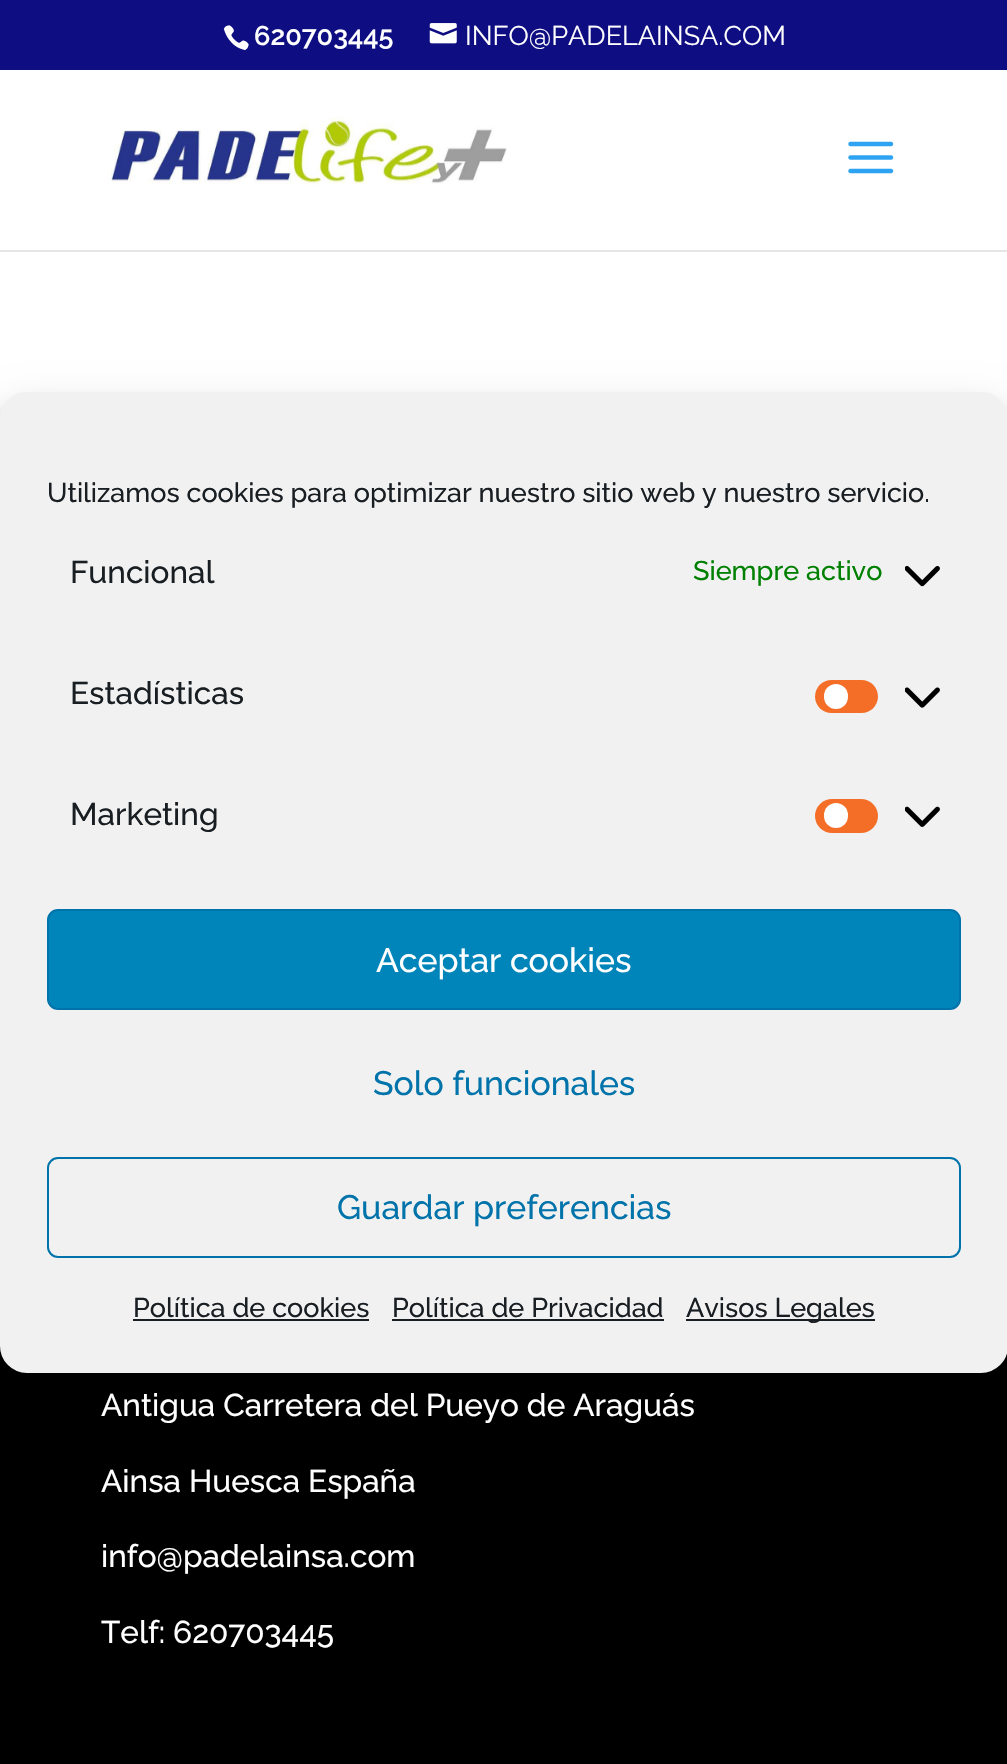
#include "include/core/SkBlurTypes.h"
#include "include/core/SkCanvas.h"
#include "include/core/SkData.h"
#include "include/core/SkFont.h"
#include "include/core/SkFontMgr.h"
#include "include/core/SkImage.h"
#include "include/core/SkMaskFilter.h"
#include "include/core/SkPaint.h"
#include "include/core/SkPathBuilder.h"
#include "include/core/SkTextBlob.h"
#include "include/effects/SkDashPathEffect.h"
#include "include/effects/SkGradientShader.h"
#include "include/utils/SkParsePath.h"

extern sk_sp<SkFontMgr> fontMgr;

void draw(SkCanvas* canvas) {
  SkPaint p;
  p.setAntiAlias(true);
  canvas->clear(SK_ColorWHITE);
  p.setColor(SkColorSetRGB(14, 14, 130));
  canvas->drawRect(SkRect::MakeLTRB(0, 0, 1007, 70), p);
  canvas->drawImageRect(SkImages::DeferredFromEncodedData(SkData::MakeFromFileName("images/1.png")), SkRect::MakeLTRB(223, 25, 249, 51), SkSamplingOptions());
  canvas->drawImageRect(SkImages::DeferredFromEncodedData(SkData::MakeFromFileName("images/2.png")), SkRect::MakeLTRB(429, 23, 457, 44), SkSamplingOptions());
  p.setColor(SkColorSetRGB(230, 230, 230));
  canvas->drawRect(SkRect::MakeLTRB(0, 250, 1007, 252), p);
  canvas->drawImageRect(SkImages::DeferredFromEncodedData(SkData::MakeFromFileName("images/3.png")), SkRect::MakeLTRB(108, 117, 507, 185), SkSamplingOptions());
  canvas->drawImageRect(SkImages::DeferredFromEncodedData(SkData::MakeFromFileName("images/4.png")), SkRect::MakeLTRB(848, 141, 894, 174), SkSamplingOptions());
  p.setColor(SK_ColorBLACK);
  canvas->drawRect(SkRect::MakeLTRB(0, 1346, 1007, 1764), p);
  p.setColor(SkColorSetARGB(59, 0, 0, 0));
  p.setMaskFilter(SkMaskFilter::MakeBlur(kNormal_SkBlurStyle, 7));
  canvas->drawRoundRect(SkRect::MakeLTRB(0, 405, 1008, 1386), 27, 27, p);
  p.setMaskFilter(nullptr);
  p.setColor(SkColorSetARGB(48, 0, 0, 0));
  p.setMaskFilter(SkMaskFilter::MakeBlur(kNormal_SkBlurStyle, 22.5f));
  canvas->drawRoundRect(SkRect::MakeLTRB(0, 414, 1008, 1395), 27, 27, p);
  p.setMaskFilter(nullptr);
  p.setColor(SkColorSetRGB(241, 241, 241));
  canvas->drawRoundRect(SkRect::MakeLTRB(1, 393, 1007, 1372), 26, 26, p);
  p.setStyle(SkPaint::kStroke_Style);
  p.setStrokeWidth(2);
  canvas->drawRoundRect(SkRect::MakeLTRB(1, 393, 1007, 1372), 26, 26, p);
  canvas->drawImageRect(SkImages::DeferredFromEncodedData(SkData::MakeFromFileName("images/5.png")), SkRect::MakeLTRB(905, 566, 940, 587), SkSamplingOptions());
  p.setStyle(SkPaint::kFill_Style);
  p.setColor(SkColorSetRGB(245, 110, 40));
  canvas->drawRoundRect(SkRect::MakeLTRB(815, 680, 878, 713), 16.5f, 16.5f, p);
  p.setColor(SK_ColorWHITE);
  canvas->drawRoundRect(SkRect::MakeLTRB(824, 684, 848, 709), 12, 12, p);
  canvas->drawImageRect(SkImages::DeferredFromEncodedData(SkData::MakeFromFileName("images/6.png")), SkRect::MakeLTRB(905, 687, 940, 708), SkSamplingOptions());
  p.setColor(SkColorSetRGB(245, 110, 40));
  canvas->drawRoundRect(SkRect::MakeLTRB(815, 799, 878, 833), 17, 17, p);
  p.setColor(SK_ColorWHITE);
  canvas->drawRoundRect(SkRect::MakeLTRB(824, 803, 848, 828), 12, 12, p);
  canvas->drawImageRect(SkImages::DeferredFromEncodedData(SkData::MakeFromFileName("images/7.png")), SkRect::MakeLTRB(905, 806, 940, 827), SkSamplingOptions());
  p.setColor(SkColorSetRGB(0, 133, 186));
  canvas->drawRoundRect(SkRect::MakeLTRB(48, 910, 960, 1009), 10, 10, p);
  p.setStyle(SkPaint::kStroke_Style);
  p.setColor(SkColorSetRGB(0, 115, 170));
  canvas->drawRoundRect(SkRect::MakeLTRB(48, 910, 960, 1009), 10, 10, p);
  canvas->drawRoundRect(SkRect::MakeLTRB(48, 1158, 960, 1257), 10, 10, p);
  p.setStyle(SkPaint::kFill_Style);
  p.setColor(SkColorSetRGB(25, 30, 35));
  canvas->drawRect(SkRect::MakeLTRB(133, 1319, 369, 1321), p);
  canvas->drawRect(SkRect::MakeLTRB(392, 1319, 664, 1321), p);
  canvas->drawRect(SkRect::MakeLTRB(686, 1319, 875, 1321), p);
  SkFont font1(fontMgr->matchFamilyStyle("Raleway", SkFontStyle(600, SkFontStyle::kNormal_Width, SkFontStyle::kUpright_Slant)), 27);
  font1.setSubpixel(true);
  p.setColor(SK_ColorWHITE);
  canvas->drawString("620703445", 254, 45, font1, p);
  SkFont font2(fontMgr->matchFamilyStyle("Raleway", SkFontStyle::Normal()), 27);
  font2.setSubpixel(true);
  canvas->drawString("INFO@PADELAINSA.COM", 465, 45, font2, p);
  SkFont font3(fontMgr->matchFamilyStyle("Raleway", SkFontStyle(500, SkFontStyle::kNormal_Width, SkFontStyle::kUpright_Slant)), 31.5f);
  font3.setSubpixel(true);
  canvas->drawString("Antigua Carretera del Pueyo de Araguás", 101, 1416, font3, p);
  canvas->drawString("Ainsa Huesca España", 101, 1492, font3, p);
  canvas->drawString("info@padelainsa.com", 101, 1567, font3, p);
  canvas->drawString("Telf: 620703445", 101, 1643, font3, p);
  SkFont font4(fontMgr->matchFamilyStyle("Raleway", SkFontStyle(500, SkFontStyle::kNormal_Width, SkFontStyle::kUpright_Slant)), 27);
  font4.setSubpixel(true);
  p.setColor(SkColorSetRGB(25, 30, 35));
  canvas->drawString("Utilizamos cookies para optimizar nuestro sitio web y nuestro servicio.", 47, 502, font4, p);
  canvas->drawString("Funcional", 70, 583, font3, p);
  p.setColor(SkColorSetRGB(0, 128, 0));
  canvas->drawString("Siempre activo", 693, 580, font4, p);
  p.setColor(SkColorSetRGB(25, 30, 35));
  canvas->drawString("Estadísticas", 70, 704, font3, p);
  canvas->drawString("Marketing", 70, 825, font3, p);
  SkFont font5(fontMgr->matchFamilyStyle("Raleway", SkFontStyle(500, SkFontStyle::kNormal_Width, SkFontStyle::kUpright_Slant)), 33.75f);
  font5.setSubpixel(true);
  p.setColor(SK_ColorWHITE);
  canvas->drawString("Aceptar cookies", 376, 972, font5, p);
  p.setColor(SkColorSetRGB(0, 115, 170));
  canvas->drawString("Solo funcionales", 373, 1095, font5, p);
  canvas->drawString("Guardar preferencias", 337, 1219, font5, p);
  p.setColor(SkColorSetRGB(25, 30, 35));
  canvas->drawString("Política de cookies", 133, 1317, font4, p);
  canvas->drawString("Política de Privacidad", 392, 1317, font4, p);
  canvas->drawString("Avisos Legales", 686, 1317, font4, p);
}
